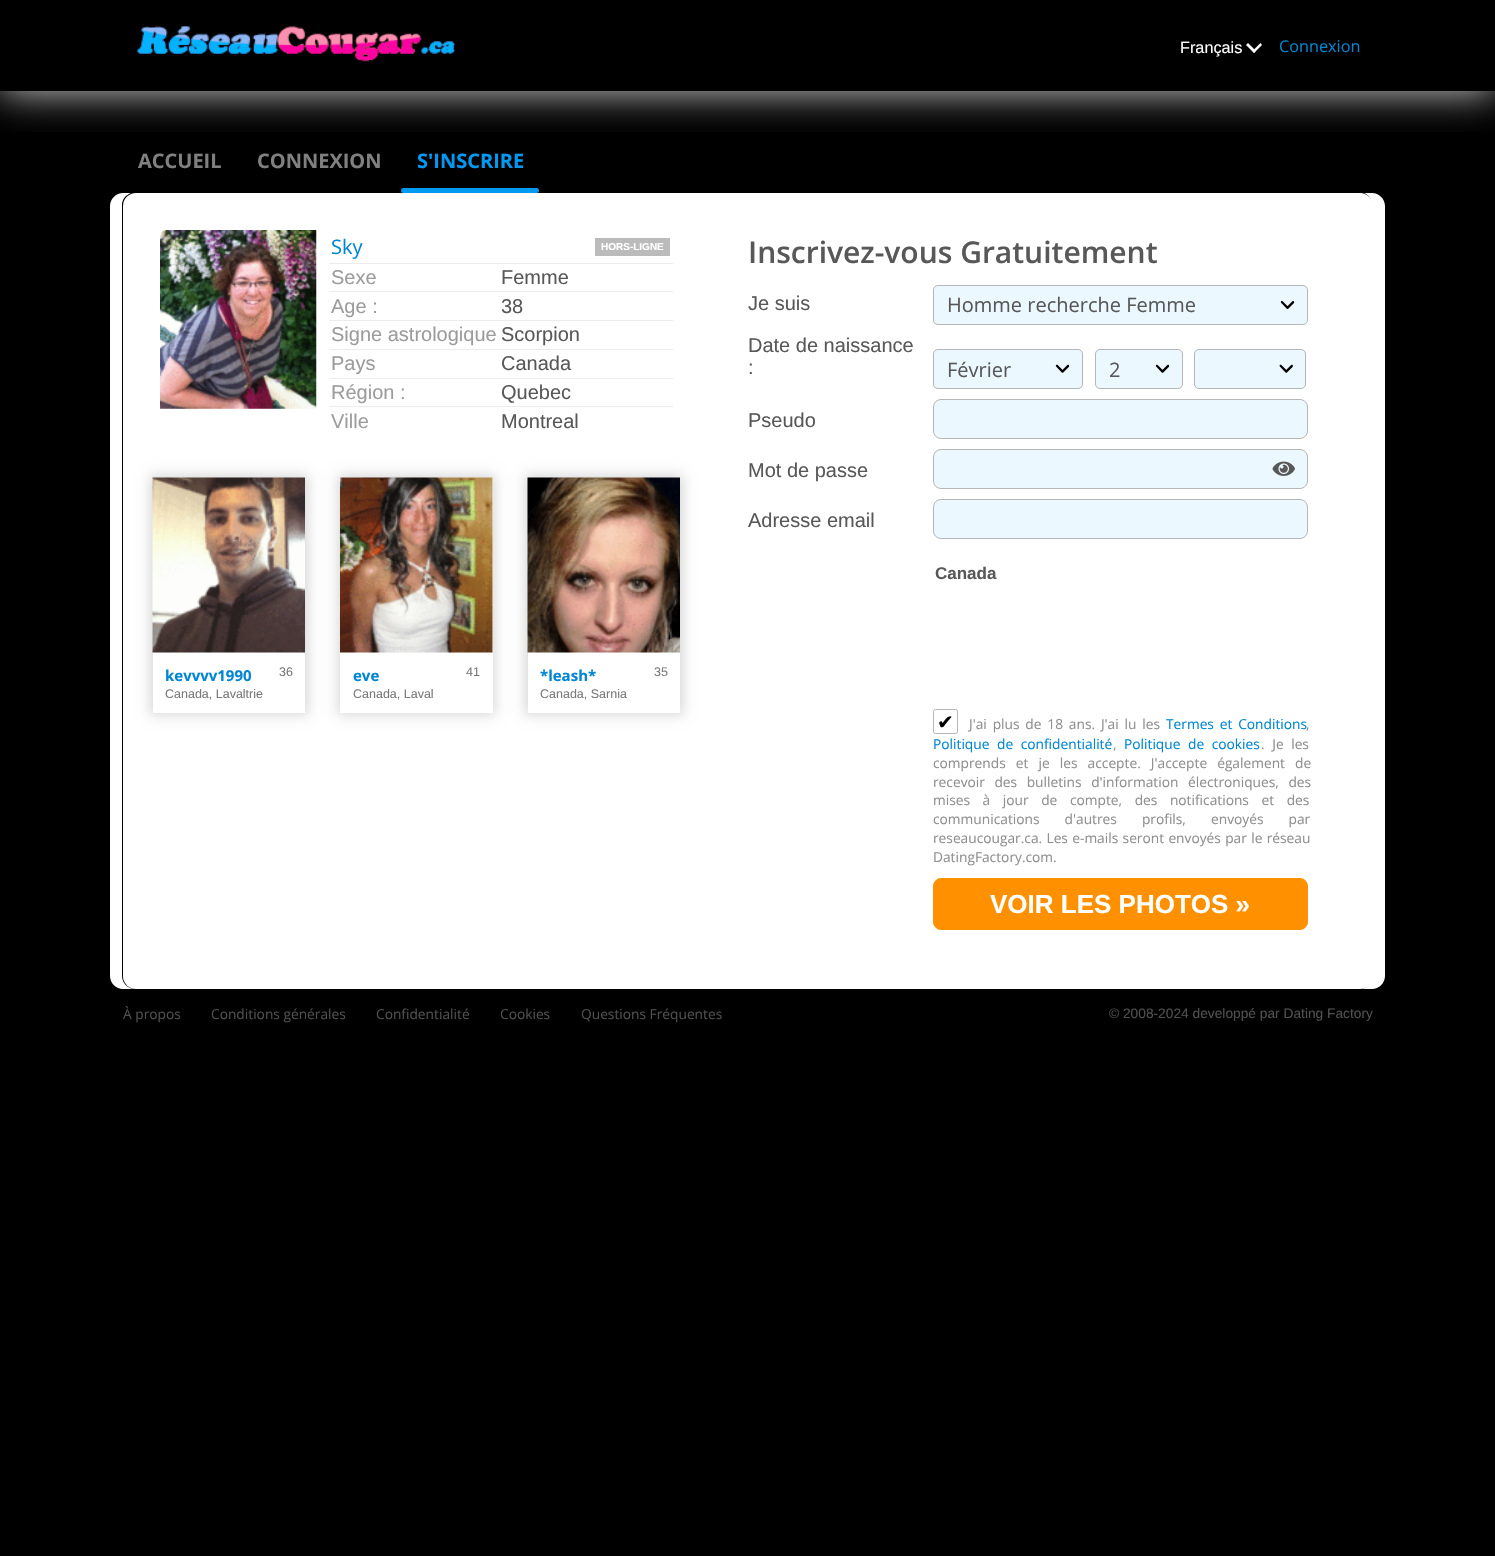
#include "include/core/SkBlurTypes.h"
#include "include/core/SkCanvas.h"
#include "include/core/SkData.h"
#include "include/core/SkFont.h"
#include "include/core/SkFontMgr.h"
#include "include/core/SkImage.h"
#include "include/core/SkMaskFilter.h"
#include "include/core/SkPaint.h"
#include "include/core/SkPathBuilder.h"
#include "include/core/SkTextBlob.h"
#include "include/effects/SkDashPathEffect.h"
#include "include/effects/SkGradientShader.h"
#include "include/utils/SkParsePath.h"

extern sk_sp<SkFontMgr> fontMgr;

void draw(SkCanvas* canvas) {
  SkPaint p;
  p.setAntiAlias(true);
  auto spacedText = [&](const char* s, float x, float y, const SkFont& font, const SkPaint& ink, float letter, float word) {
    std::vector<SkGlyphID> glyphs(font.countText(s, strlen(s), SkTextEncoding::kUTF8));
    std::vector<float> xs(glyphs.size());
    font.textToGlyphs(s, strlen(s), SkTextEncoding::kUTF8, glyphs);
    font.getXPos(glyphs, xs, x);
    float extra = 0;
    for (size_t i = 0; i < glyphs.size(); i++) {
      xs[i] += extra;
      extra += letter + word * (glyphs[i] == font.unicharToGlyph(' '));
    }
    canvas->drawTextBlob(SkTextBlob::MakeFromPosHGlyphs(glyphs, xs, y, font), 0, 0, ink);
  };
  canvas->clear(SK_ColorBLACK);
  canvas->save();
  canvas->clipRect(SkRect::MakeLTRB(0, 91, 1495, 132));
  p.setColor(SkColorSetRGB(215, 215, 215));
  p.setMaskFilter(SkMaskFilter::MakeBlur(kNormal_SkBlurStyle, 20));
  canvas->drawRect(SkRect::MakeLTRB(0, 0, 1495, 91), p);
  p.setMaskFilter(nullptr);
  canvas->restore();
  canvas->drawImageRect(SkImages::DeferredFromEncodedData(SkData::MakeFromFileName("images/1.png")), SkRect::MakeLTRB(137, 26, 456, 62), SkSamplingOptions());
  p.setColor(SK_ColorWHITE);
  canvas->drawPath(SkPathBuilder().moveTo(1260.5f, 43).lineTo(1262, 45).lineTo(1254, 53).lineTo(1252.5f, 51).close().detach(), p);
  canvas->drawPath(SkPathBuilder().moveTo(1248, 43).lineTo(1256, 51).lineTo(1254, 53).lineTo(1246, 45).close().detach(), p);
  p.setColor(SkColorSetRGB(0, 154, 243));
  canvas->drawRoundRect(SkRect::MakeLTRB(401, 188, 539, 193), 2.5f, 2.5f, p);
  p.setColor(SK_ColorWHITE);
  canvas->drawPath(SkPathBuilder().moveTo(123, 193).cubicTo(116, 193, 110, 199, 110, 206).lineTo(110, 976).cubicTo(110, 983, 116, 989, 123, 989).lineTo(1350, 989).lineTo(135, 989).cubicTo(128, 989, 122, 983, 122, 976).lineTo(122, 205).cubicTo(122, 199, 126, 195, 131, 193).close().detach(), p);
  canvas->drawPath(SkPathBuilder().moveTo(145, 989).lineTo(1372, 989).cubicTo(1379, 989, 1385, 983, 1385, 976).lineTo(1385, 206).cubicTo(1385, 199, 1379, 193, 1372, 193).lineTo(1364, 193).cubicTo(1369, 195, 1372, 199, 1372, 205).lineTo(1372, 976).cubicTo(1372, 983, 1367, 989, 1360, 989).close().detach(), p);
  canvas->drawRoundRect(SkRect::MakeLTRB(123, 193, 1373, 989), 13, 13, p);
  canvas->drawImageRect(SkImages::DeferredFromEncodedData(SkData::MakeFromFileName("images/2.png")), SkRect::MakeLTRB(160, 230, 317, 409), SkSamplingOptions());
  p.setColor(SkColorSetRGB(187, 187, 187));
  canvas->drawRect(SkRect::MakeLTRB(595, 238, 670, 256), p);
  p.setColor(SkColorSetRGB(236, 236, 236));
  canvas->drawRect(SkRect::MakeLTRB(329, 263, 673, 264), p);
  canvas->drawRect(SkRect::MakeLTRB(329, 291, 673, 292), p);
  canvas->drawRect(SkRect::MakeLTRB(329, 320, 673, 321), p);
  canvas->drawRect(SkRect::MakeLTRB(329, 349, 673, 350), p);
  canvas->drawRect(SkRect::MakeLTRB(329, 378, 673, 379), p);
  canvas->drawRect(SkRect::MakeLTRB(329, 406, 673, 407), p);
  canvas->save();
  canvas->clipPath(SkPathBuilder(SkPathFillType::kEvenOdd).moveTo(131, 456).lineTo(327, 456).lineTo(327, 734).lineTo(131, 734).close().moveTo(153, 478).lineTo(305, 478).lineTo(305, 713).lineTo(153, 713).close().detach(), true);
  p.setColor(SkColorSetRGB(215, 215, 215));
  p.setMaskFilter(SkMaskFilter::MakeBlur(kNormal_SkBlurStyle, 6));
  canvas->drawRect(SkRect::MakeLTRB(150, 475, 308, 715), p);
  p.setMaskFilter(nullptr);
  canvas->restore();
  canvas->drawImageRect(SkImages::DeferredFromEncodedData(SkData::MakeFromFileName("images/3.png")), SkRect::MakeLTRB(152, 477, 305, 653), SkSamplingOptions());
  canvas->save();
  canvas->clipPath(SkPathBuilder(SkPathFillType::kEvenOdd).moveTo(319, 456).lineTo(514, 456).lineTo(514, 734).lineTo(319, 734).close().moveTo(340, 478).lineTo(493, 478).lineTo(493, 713).lineTo(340, 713).close().detach(), true);
  p.setMaskFilter(SkMaskFilter::MakeBlur(kNormal_SkBlurStyle, 6));
  canvas->drawRect(SkRect::MakeLTRB(338, 475, 495, 715), p);
  p.setMaskFilter(nullptr);
  canvas->restore();
  canvas->drawImageRect(SkImages::DeferredFromEncodedData(SkData::MakeFromFileName("images/4.png")), SkRect::MakeLTRB(340, 477, 493, 653), SkSamplingOptions());
  canvas->save();
  canvas->clipPath(SkPathBuilder(SkPathFillType::kEvenOdd).moveTo(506, 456).lineTo(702, 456).lineTo(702, 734).lineTo(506, 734).close().moveTo(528, 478).lineTo(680, 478).lineTo(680, 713).lineTo(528, 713).close().detach(), true);
  p.setMaskFilter(SkMaskFilter::MakeBlur(kNormal_SkBlurStyle, 6));
  canvas->drawRect(SkRect::MakeLTRB(525, 475, 683, 715), p);
  p.setMaskFilter(nullptr);
  canvas->restore();
  canvas->drawImageRect(SkImages::DeferredFromEncodedData(SkData::MakeFromFileName("images/5.png")), SkRect::MakeLTRB(527, 477, 680, 653), SkSamplingOptions());
  p.setColor(SkColorSetRGB(236, 248, 255));
  canvas->drawRoundRect(SkRect::MakeLTRB(933, 285, 1308, 325), 5, 5, p);
  canvas->drawImageRect(SkImages::DeferredFromEncodedData(SkData::MakeFromFileName("images/6.png")), SkRect::MakeLTRB(1280, 301, 1295, 309), SkSamplingOptions());
  p.setStyle(SkPaint::kStroke_Style);
  p.setStrokeWidth(1);
  p.setColor(SkColorSetRGB(182, 182, 182));
  canvas->drawRoundRect(SkRect::MakeLTRB(933.5f, 285.5f, 1307.5f, 324.5f), 4.5f, 4.5f, p);
  p.setStyle(SkPaint::kFill_Style);
  p.setColor(SkColorSetRGB(236, 248, 255));
  canvas->drawRoundRect(SkRect::MakeLTRB(933, 349, 1083, 389), 5, 5, p);
  canvas->drawImageRect(SkImages::DeferredFromEncodedData(SkData::MakeFromFileName("images/7.png")), SkRect::MakeLTRB(1055, 364, 1070, 373), SkSamplingOptions());
  p.setStyle(SkPaint::kStroke_Style);
  p.setColor(SkColorSetRGB(182, 182, 182));
  canvas->drawRoundRect(SkRect::MakeLTRB(933.5f, 349.5f, 1082.5f, 388.5f), 4.5f, 4.5f, p);
  p.setStyle(SkPaint::kFill_Style);
  p.setColor(SkColorSetRGB(236, 248, 255));
  canvas->drawRoundRect(SkRect::MakeLTRB(1095, 349, 1183, 389), 5, 5, p);
  canvas->drawImageRect(SkImages::DeferredFromEncodedData(SkData::MakeFromFileName("images/7.png")), SkRect::MakeLTRB(1155, 364, 1170, 373), SkSamplingOptions());
  p.setStyle(SkPaint::kStroke_Style);
  p.setColor(SkColorSetRGB(182, 182, 182));
  canvas->drawRoundRect(SkRect::MakeLTRB(1095.5f, 349.5f, 1182.5f, 388.5f), 4.5f, 4.5f, p);
  p.setStyle(SkPaint::kFill_Style);
  p.setColor(SkColorSetRGB(236, 248, 255));
  canvas->drawRoundRect(SkRect::MakeLTRB(1194, 349, 1306, 389), 5, 5, p);
  canvas->drawImageRect(SkImages::DeferredFromEncodedData(SkData::MakeFromFileName("images/8.png")), SkRect::MakeLTRB(1279, 364, 1293, 373), SkSamplingOptions());
  p.setStyle(SkPaint::kStroke_Style);
  p.setColor(SkColorSetRGB(182, 182, 182));
  canvas->drawRoundRect(SkRect::MakeLTRB(1194.5f, 349.5f, 1305.5f, 388.5f), 4.5f, 4.5f, p);
  p.setStyle(SkPaint::kFill_Style);
  p.setColor(SkColorSetRGB(236, 248, 255));
  canvas->drawRoundRect(SkRect::MakeLTRB(933.5f, 399.5f, 1307.5f, 438.5f), 7.5f, 7.5f, p);
  p.setStyle(SkPaint::kStroke_Style);
  p.setColor(SkColorSetRGB(182, 182, 182));
  canvas->drawRoundRect(SkRect::MakeLTRB(933.5f, 399.5f, 1307.5f, 438.5f), 7.5f, 7.5f, p);
  p.setStyle(SkPaint::kFill_Style);
  p.setColor(SkColorSetRGB(236, 248, 255));
  canvas->drawRoundRect(SkRect::MakeLTRB(933.5f, 449.5f, 1307.5f, 488.5f), 7.5f, 7.5f, p);
  p.setStyle(SkPaint::kStroke_Style);
  p.setColor(SkColorSetRGB(182, 182, 182));
  canvas->drawRoundRect(SkRect::MakeLTRB(933.5f, 449.5f, 1307.5f, 488.5f), 7.5f, 7.5f, p);
  canvas->drawImageRect(SkImages::DeferredFromEncodedData(SkData::MakeFromFileName("images/9.png")), SkRect::MakeLTRB(1272, 461, 1295, 476), SkSamplingOptions());
  p.setStyle(SkPaint::kFill_Style);
  p.setColor(SkColorSetRGB(236, 248, 255));
  canvas->drawRoundRect(SkRect::MakeLTRB(933.5f, 499.5f, 1307.5f, 538.5f), 7.5f, 7.5f, p);
  p.setStyle(SkPaint::kStroke_Style);
  p.setColor(SkColorSetRGB(182, 182, 182));
  canvas->drawRoundRect(SkRect::MakeLTRB(933.5f, 499.5f, 1307.5f, 538.5f), 7.5f, 7.5f, p);
  canvas->drawRoundRect(SkRect::MakeLTRB(933.5f, 709.5f, 957.5f, 733.5f), 2, 2, p);
  p.setStyle(SkPaint::kFill_Style);
  p.setColor(SkColorSetRGB(255, 144, 0));
  canvas->drawRoundRect(SkRect::MakeLTRB(933.5f, 878.5f, 1307.5f, 929.5f), 7.5f, 7.5f, p);
  p.setStyle(SkPaint::kStroke_Style);
  canvas->drawRoundRect(SkRect::MakeLTRB(933.5f, 878.5f, 1307.5f, 929.5f), 7.5f, 7.5f, p);
  SkFont font1(fontMgr->matchFamilyStyle("Liberation Sans", SkFontStyle::Normal()), 16.25f);
  font1.setSubpixel(true);
  p.setStyle(SkPaint::kFill_Style);
  p.setColor(SK_ColorWHITE);
  canvas->drawString("Français", 1180, 53, font1, p);
  SkFont font2(fontMgr->matchFamilyStyle("Open Sans", SkFontStyle::Normal()), 16.25f);
  font2.setSubpixel(true);
  p.setColor(SkColorSetRGB(0, 134, 211));
  canvas->drawString("Connexion", 1279, 52, font2, p);
  SkFont font3(fontMgr->matchFamilyStyle("Open Sans", SkFontStyle::Bold()), 20);
  font3.setSubpixel(true);
  p.setColor(SkColorSetRGB(128, 128, 128));
  canvas->drawString("ACCUEIL", 138, 168, font3, p);
  canvas->drawString("CONNEXION", 257, 168, font3, p);
  p.setColor(SkColorSetRGB(0, 154, 243));
  canvas->drawString("S'INSCRIRE", 417, 168, font3, p);
  SkFont font4(fontMgr->matchFamilyStyle("Open Sans", SkFontStyle::Normal()), 20);
  font4.setSubpixel(true);
  p.setColor(SkColorSetRGB(0, 134, 211));
  canvas->drawString("Sky", 331, 254, font4, p);
  SkFont font5(fontMgr->matchFamilyStyle("Liberation Sans", SkFontStyle::Bold()), 10);
  font5.setSubpixel(true);
  p.setColor(SK_ColorWHITE);
  canvas->drawString("HORS-LIGNE", 601, 250, font5, p);
  SkFont font6(fontMgr->matchFamilyStyle("Liberation Sans", SkFontStyle::Normal()), 20);
  font6.setSubpixel(true);
  p.setColor(SkColorSetRGB(156, 156, 156));
  canvas->drawString("Sexe", 331, 284, font6, p);
  p.setColor(SkColorSetRGB(88, 88, 88));
  canvas->drawString("Femme", 501, 284, font6, p);
  p.setColor(SkColorSetRGB(156, 156, 156));
  canvas->drawString("Age :", 331, 313, font6, p);
  p.setColor(SkColorSetRGB(88, 88, 88));
  canvas->drawString("38", 501, 313, font6, p);
  p.setColor(SkColorSetRGB(156, 156, 156));
  canvas->drawString("Signe astrologique", 331, 341, font6, p);
  p.setColor(SkColorSetRGB(88, 88, 88));
  canvas->drawString("Scorpion", 501, 341, font6, p);
  p.setColor(SkColorSetRGB(156, 156, 156));
  canvas->drawString("Pays", 331, 370, font6, p);
  p.setColor(SkColorSetRGB(88, 88, 88));
  canvas->drawString("Canada", 501, 370, font6, p);
  p.setColor(SkColorSetRGB(156, 156, 156));
  canvas->drawString("Région :", 331, 399, font6, p);
  p.setColor(SkColorSetRGB(88, 88, 88));
  canvas->drawString("Quebec", 501, 399, font6, p);
  p.setColor(SkColorSetRGB(156, 156, 156));
  canvas->drawString("Ville", 331, 428, font6, p);
  p.setColor(SkColorSetRGB(88, 88, 88));
  canvas->drawString("Montreal", 501, 428, font6, p);
  SkFont font7(fontMgr->matchFamilyStyle("Open Sans", SkFontStyle::Bold()), 15);
  font7.setSubpixel(true);
  p.setColor(SkColorSetRGB(0, 134, 211));
  canvas->drawString("kevvvv1990", 165, 681, font7, p);
  SkFont font8(fontMgr->matchFamilyStyle("Liberation Sans", SkFontStyle::Normal()), 12.5f);
  font8.setSubpixel(true);
  p.setColor(SkColorSetRGB(121, 121, 121));
  canvas->drawString("36", 279, 676, font8, p);
  canvas->drawString("Canada, Lavaltrie", 165, 698, font8, p);
  p.setColor(SkColorSetRGB(0, 134, 211));
  canvas->drawString("eve", 353, 681, font7, p);
  p.setColor(SkColorSetRGB(121, 121, 121));
  canvas->drawString("41", 466, 676, font8, p);
  canvas->drawString("Canada, Laval", 353, 698, font8, p);
  p.setColor(SkColorSetRGB(0, 134, 211));
  canvas->drawString("*leash*", 540, 681, font7, p);
  p.setColor(SkColorSetRGB(121, 121, 121));
  canvas->drawString("35", 654, 676, font8, p);
  canvas->drawString("Canada, Sarnia", 540, 698, font8, p);
  SkFont font9(fontMgr->matchFamilyStyle("Open Sans", SkFontStyle(600, SkFontStyle::kNormal_Width, SkFontStyle::kUpright_Slant)), 30);
  font9.setSubpixel(true);
  p.setColor(SkColorSetRGB(88, 88, 88));
  canvas->drawString("Inscrivez-vous Gratuitement", 748, 263, font9, p);
  canvas->drawString("Je suis", 748, 310, font6, p);
  canvas->drawString("Homme recherche Femme", 947, 312, font4, p);
  canvas->drawString("Date de naissance", 748, 352, font6, p);
  canvas->drawString(":", 748, 374, font6, p);
  canvas->drawString("Février", 947, 377, font4, p);
  canvas->drawString("2", 1109, 377, font4, p);
  canvas->drawString("Pseudo", 748, 427, font6, p);
  canvas->drawString("Mot de passe", 748, 477, font6, p);
  canvas->drawString("Adresse email", 748, 527, font6, p);
  SkFont font10(fontMgr->matchFamilyStyle("Liberation Sans", SkFontStyle::Bold()), 17);
  font10.setSubpixel(true);
  canvas->drawString("Canada", 935, 579, font10, p);
  SkFont font11(fontMgr->matchFamilyStyle("DejaVu Sans", SkFontStyle::Normal()), 20);
  font11.setSubpixel(true);
  p.setColor(SK_ColorBLACK);
  canvas->drawString("✔", 937, 729, font11, p);
  SkFont font12(fontMgr->matchFamilyStyle("Open Sans", SkFontStyle::Normal()), 13.75f);
  font12.setSubpixel(true);
  p.setColor(SkColorSetRGB(144, 143, 143));
  spacedText("J'ai plus de 18 ans. J'ai lu les", 969, 729, font12, p, 0, 2.25f);
  p.setColor(SkColorSetRGB(0, 134, 211));
  spacedText("Termes et Conditions", 1166, 729, font12, p, 0, 2.25f);
  p.setColor(SkColorSetRGB(144, 143, 143));
  canvas->drawString(",", 1306, 729, font12, p);
  p.setColor(SkColorSetRGB(0, 134, 211));
  spacedText("Politique de confidentialité", 933, 749, font12, p, 0, 4);
  p.setColor(SkColorSetRGB(144, 143, 143));
  canvas->drawString(",", 1113, 749, font12, p);
  p.setColor(SkColorSetRGB(0, 134, 211));
  spacedText("Politique de cookies", 1124, 749, font12, p, 0, 4);
  p.setColor(SkColorSetRGB(144, 143, 143));
  spacedText(". Je les", 1261, 749, font12, p, 0, 4);
  spacedText("comprends et je les accepte. J'accepte également de", 933, 768, font12, p, 0, 6.5f);
  spacedText("recevoir des bulletins d'information électroniques, des", 933, 787, font12, p, 0, 6);
  spacedText("mises à jour de compte, des notifications et des", 933, 805, font12, p, 0, 9);
  spacedText("communications d'autres profils, envoyés par", 933, 824, font12, p, 0, 21.5f);
  spacedText("reseaucougar.ca. Les e-mails seront envoyés par le réseau", 933, 843, font12, p, 0, 0.75f);
  canvas->drawString("DatingFactory.com.", 933, 862, font12, p);
  SkFont font13(fontMgr->matchFamilyStyle("Liberation Sans", SkFontStyle::Bold()), 26);
  font13.setSubpixel(true);
  p.setColor(SK_ColorWHITE);
  canvas->drawString("VOIR LES PHOTOS »", 990, 913, font13, p);
  p.setColor(SkColorSetRGB(80, 80, 80));
  canvas->drawString("À propos", 123, 1019, font12, p);
  canvas->drawString("Conditions générales", 211, 1019, font12, p);
  canvas->drawString("Confidentialité", 376, 1019, font12, p);
  canvas->drawString("Cookies", 500, 1019, font12, p);
  canvas->drawString("Questions Fréquentes", 581, 1019, font12, p);
  SkFont font14(fontMgr->matchFamilyStyle("Liberation Sans", SkFontStyle::Normal()), 13.75f);
  font14.setSubpixel(true);
  canvas->drawString("© 2008-2024 developpé par Dating Factory", 1109, 1018, font14, p);
}
